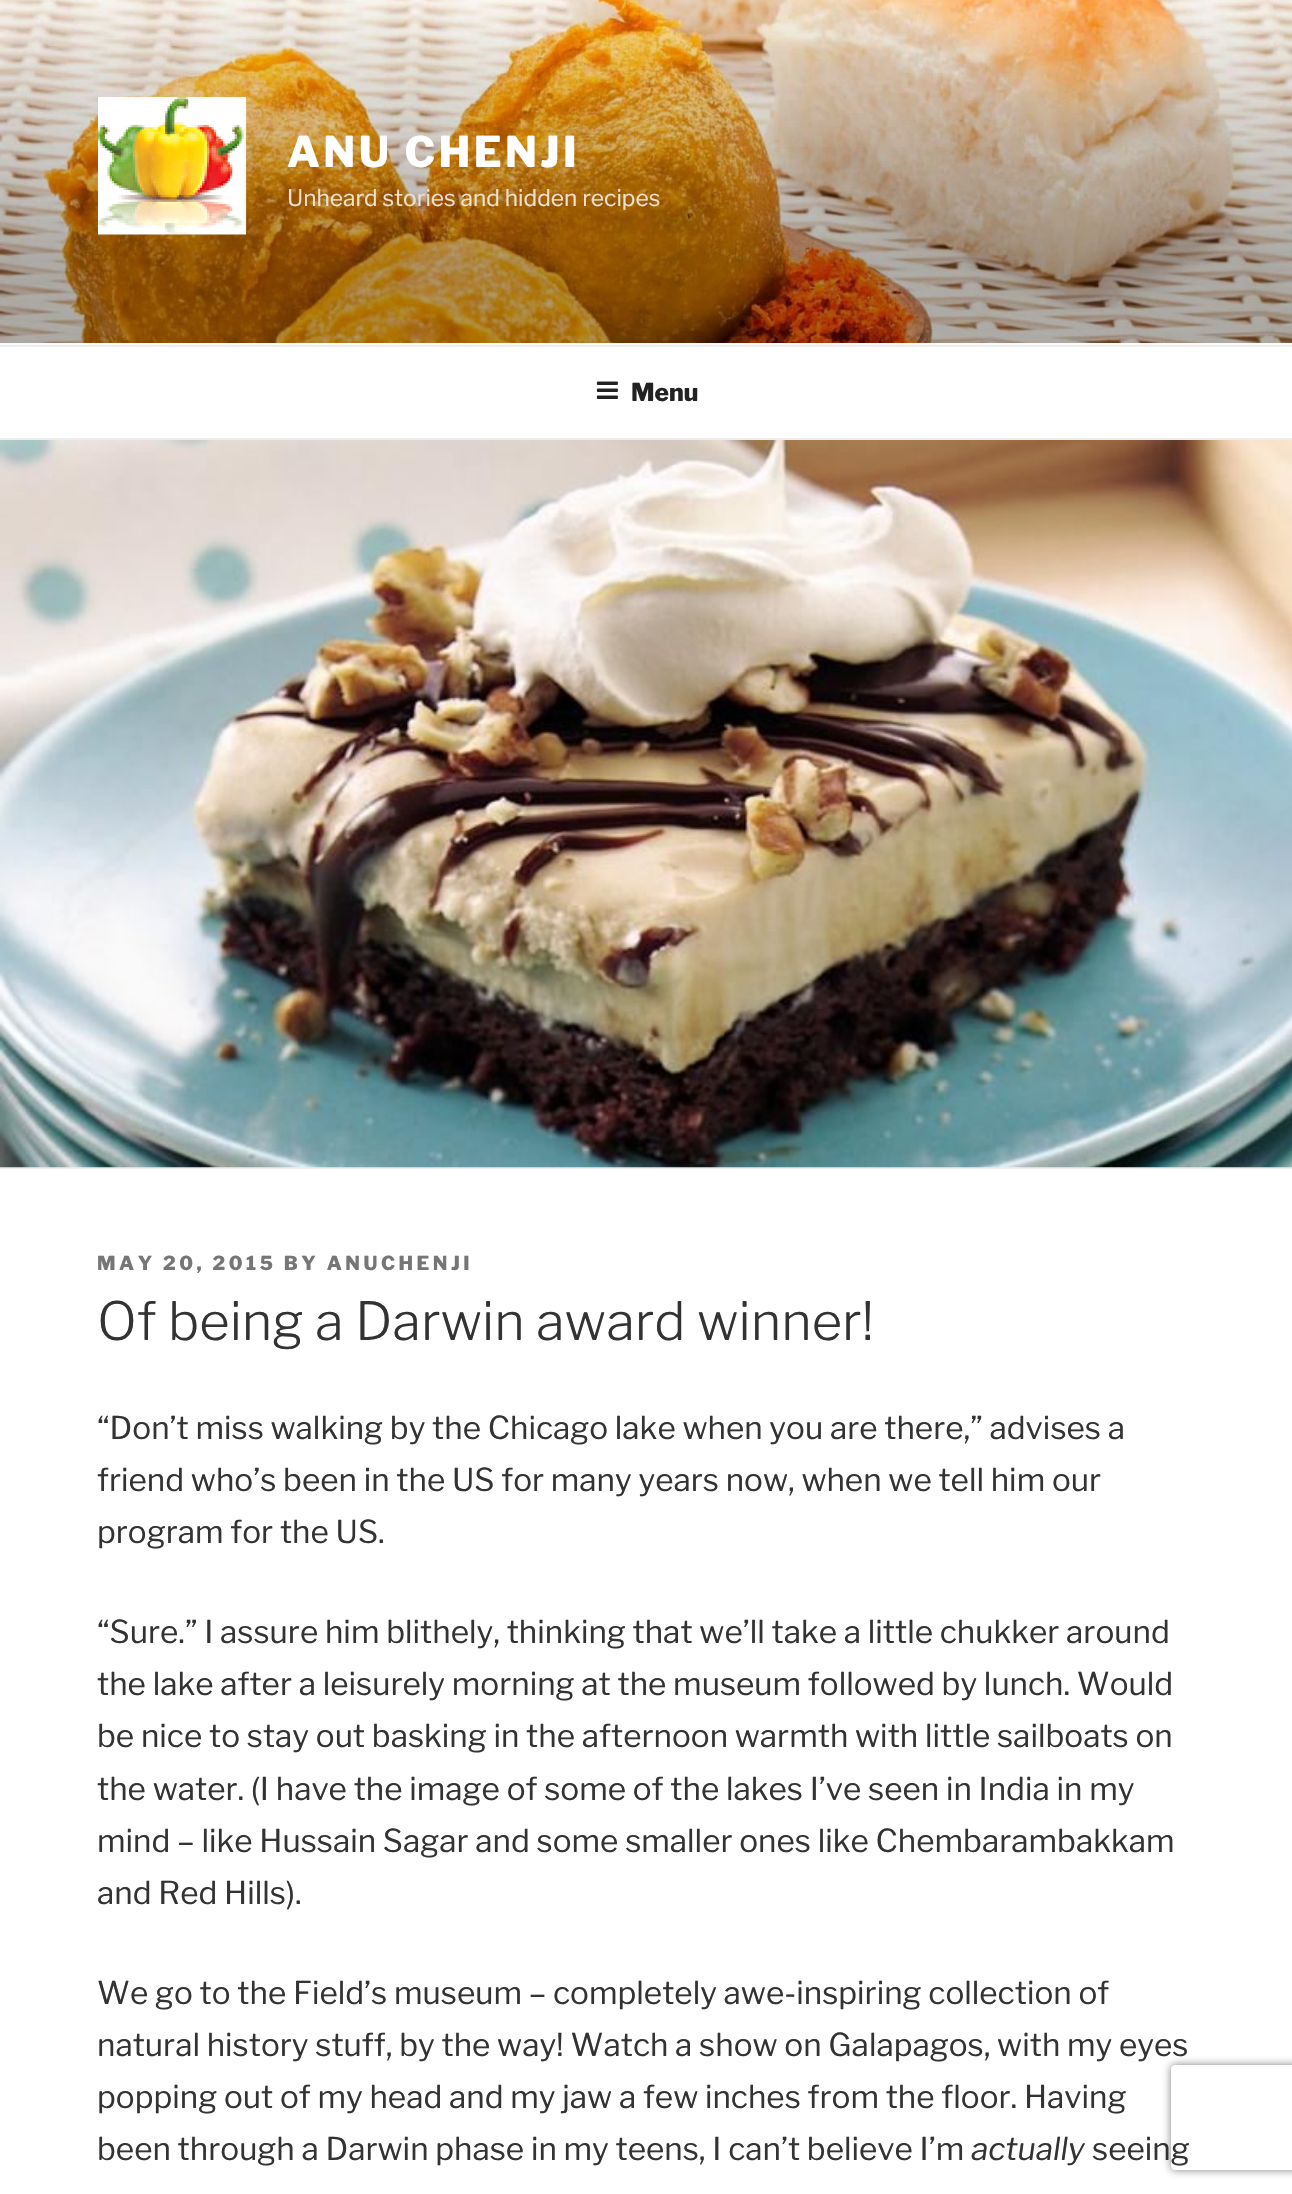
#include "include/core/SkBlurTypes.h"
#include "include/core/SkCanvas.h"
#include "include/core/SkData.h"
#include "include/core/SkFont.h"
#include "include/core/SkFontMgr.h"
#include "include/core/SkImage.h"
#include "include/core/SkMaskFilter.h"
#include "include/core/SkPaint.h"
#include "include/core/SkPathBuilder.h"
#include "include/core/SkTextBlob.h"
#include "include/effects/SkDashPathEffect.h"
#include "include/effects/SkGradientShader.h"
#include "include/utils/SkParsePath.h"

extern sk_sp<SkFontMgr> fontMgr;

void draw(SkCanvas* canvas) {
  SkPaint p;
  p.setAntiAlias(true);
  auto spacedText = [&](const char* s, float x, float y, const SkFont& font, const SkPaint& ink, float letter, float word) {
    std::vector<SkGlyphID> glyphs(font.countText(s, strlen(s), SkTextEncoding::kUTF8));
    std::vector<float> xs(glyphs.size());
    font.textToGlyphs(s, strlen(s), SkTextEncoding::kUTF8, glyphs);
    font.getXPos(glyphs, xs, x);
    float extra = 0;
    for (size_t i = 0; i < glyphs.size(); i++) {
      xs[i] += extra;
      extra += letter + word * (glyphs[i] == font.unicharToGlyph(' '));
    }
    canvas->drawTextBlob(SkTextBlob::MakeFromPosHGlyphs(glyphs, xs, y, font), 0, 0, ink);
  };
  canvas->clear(SK_ColorWHITE);
  p.setColor(SkColorSetRGB(250, 250, 250));
  canvas->drawRect(SkRect::MakeLTRB(0, 343, 1292, 345), p);
  canvas->drawImageRect(SkImages::DeferredFromEncodedData(SkData::MakeFromFileName("images/1.png")), SkRect::MakeLTRB(0, 0, 1292, 343), SkSamplingOptions());
  canvas->drawImageRect(SkImages::DeferredFromEncodedData(SkData::MakeFromFileName("images/2.png")), SkRect::MakeLTRB(98, 96, 247, 235), SkSamplingOptions());
  p.setColor(SkColorSetRGB(238, 238, 238));
  canvas->drawRect(SkRect::MakeLTRB(0, 345, 1292, 347), p);
  canvas->drawRect(SkRect::MakeLTRB(0, 438, 1292, 440), p);
  canvas->drawImageRect(SkImages::DeferredFromEncodedData(SkData::MakeFromFileName("images/3.png")), SkRect::MakeLTRB(596, 381, 618, 399), SkSamplingOptions());
  canvas->drawRect(SkRect::MakeLTRB(0, 1167, 1292, 1169), p);
  canvas->drawImageRect(SkImages::DeferredFromEncodedData(SkData::MakeFromFileName("images/4.png")), SkRect::MakeLTRB(0, 440, 1292, 1168), SkSamplingOptions());
  canvas->save();
  canvas->clipPath(SkPathBuilder(SkPathFillType::kEvenOdd).moveTo(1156, 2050).lineTo(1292, 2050).lineTo(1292, 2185).lineTo(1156, 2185).close().moveTo(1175, 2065).lineTo(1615, 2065).cubicTo(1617, 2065, 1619, 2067, 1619, 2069).lineTo(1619, 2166).cubicTo(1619, 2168, 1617, 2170, 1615, 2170).lineTo(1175, 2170).cubicTo(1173, 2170, 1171, 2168, 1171, 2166).lineTo(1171, 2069).cubicTo(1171, 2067, 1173, 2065, 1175, 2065).close().detach(), true);
  p.setColor(SkColorSetRGB(128, 128, 128));
  p.setMaskFilter(SkMaskFilter::MakeBlur(kNormal_SkBlurStyle, 4.5f));
  canvas->drawRoundRect(SkRect::MakeLTRB(1171, 2065, 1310, 2170), 4, 4, p);
  p.setMaskFilter(nullptr);
  canvas->restore();
  SkFont font1(fontMgr->matchFamilyStyle("Libre Franklin", SkFontStyle(100, SkFontStyle::kNormal_Width, SkFontStyle::kUpright_Slant)), 42);
  font1.setSubpixel(true);
  p.setColor(SK_ColorWHITE);
  spacedText("ANU CHENJI", 287, 167, font1, p, 3.4f, 0);
  SkFont font2(fontMgr->matchFamilyStyle("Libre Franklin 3", SkFontStyle(100, SkFontStyle::kNormal_Width, SkFontStyle::kUpright_Slant)), 22.75f);
  font2.setSubpixel(true);
  p.setColor(SkColorSetRGB(237, 224, 207));
  canvas->drawString("Unheard stories and hidden recipes", 287, 206, font2, p);
  SkFont font3(fontMgr->matchFamilyStyle("Libre Franklin", SkFontStyle(100, SkFontStyle::kNormal_Width, SkFontStyle::kUpright_Slant)), 24.5f);
  font3.setSubpixel(true);
  p.setColor(SkColorSetRGB(34, 34, 34));
  canvas->drawString("Menu", 631, 401, font3, p);
  SkFont font4(fontMgr->matchFamilyStyle("Libre Franklin", SkFontStyle(100, SkFontStyle::kNormal_Width, SkFontStyle::kUpright_Slant)), 19.25f);
  font4.setSubpixel(true);
  p.setColor(SkColorSetRGB(118, 118, 118));
  spacedText("MAY 20, 2015 BY ANUCHENJI", 97, 1270, font4, p, 3.5f, 0);
  SkFont font5(fontMgr->matchFamilyStyle("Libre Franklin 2", SkFontStyle(100, SkFontStyle::kNormal_Width, SkFontStyle::kUpright_Slant)), 52.5f);
  font5.setSubpixel(true);
  p.setColor(SkColorSetRGB(51, 51, 51));
  canvas->drawString("Of being a Darwin award winner!", 97, 1340, font5, p);
  SkFont font6(fontMgr->matchFamilyStyle("Libre Franklin 3", SkFontStyle(100, SkFontStyle::kNormal_Width, SkFontStyle::kUpright_Slant)), 31.5f);
  font6.setSubpixel(true);
  canvas->drawString("“Don’t miss walking by the Chicago lake when you are there,” advises a", 97, 1439, font6, p);
  canvas->drawString("friend who’s been in the US for many years now, when we tell him our", 97, 1491, font6, p);
  canvas->drawString("program for the US.", 97, 1543, font6, p);
  canvas->drawString("“Sure.” I assure him blithely, thinking that we’ll take a little chukker around", 97, 1643, font6, p);
  canvas->drawString("the lake after a leisurely morning at the museum followed by lunch. Would", 97, 1695, font6, p);
  canvas->drawString("be nice to stay out basking in the afternoon warmth with little sailboats on", 97, 1747, font6, p);
  canvas->drawString("the water. (I have the image of some of the lakes I’ve seen in India in my", 97, 1800, font6, p);
  canvas->drawString("mind – like Hussain Sagar and some smaller ones like Chembarambakkam", 97, 1852, font6, p);
  canvas->drawString("and Red Hills).", 97, 1904, font6, p);
  canvas->drawString("We go to the Field’s museum – completely awe-inspiring collection of", 97, 2004, font6, p);
  canvas->drawString("natural history stuff, by the way! Watch a show on Galapagos, with my eyes", 97, 2056, font6, p);
  canvas->drawString("popping out of my head and my jaw a few inches from the floor. Having", 97, 2108, font6, p);
  canvas->drawString("been through a Darwin phase in my teens, I can’t believe I’m", 97, 2160, font6, p);
  SkFont font7(fontMgr->matchFamilyStyle("Libre Franklin", SkFontStyle(100, SkFontStyle::kNormal_Width, SkFontStyle::kItalic_Slant)), 31.5f);
  font7.setSubpixel(true);
  canvas->drawString("actually", 971, 2160, font7, p);
  canvas->drawString("seeing", 1092, 2160, font6, p);
}
